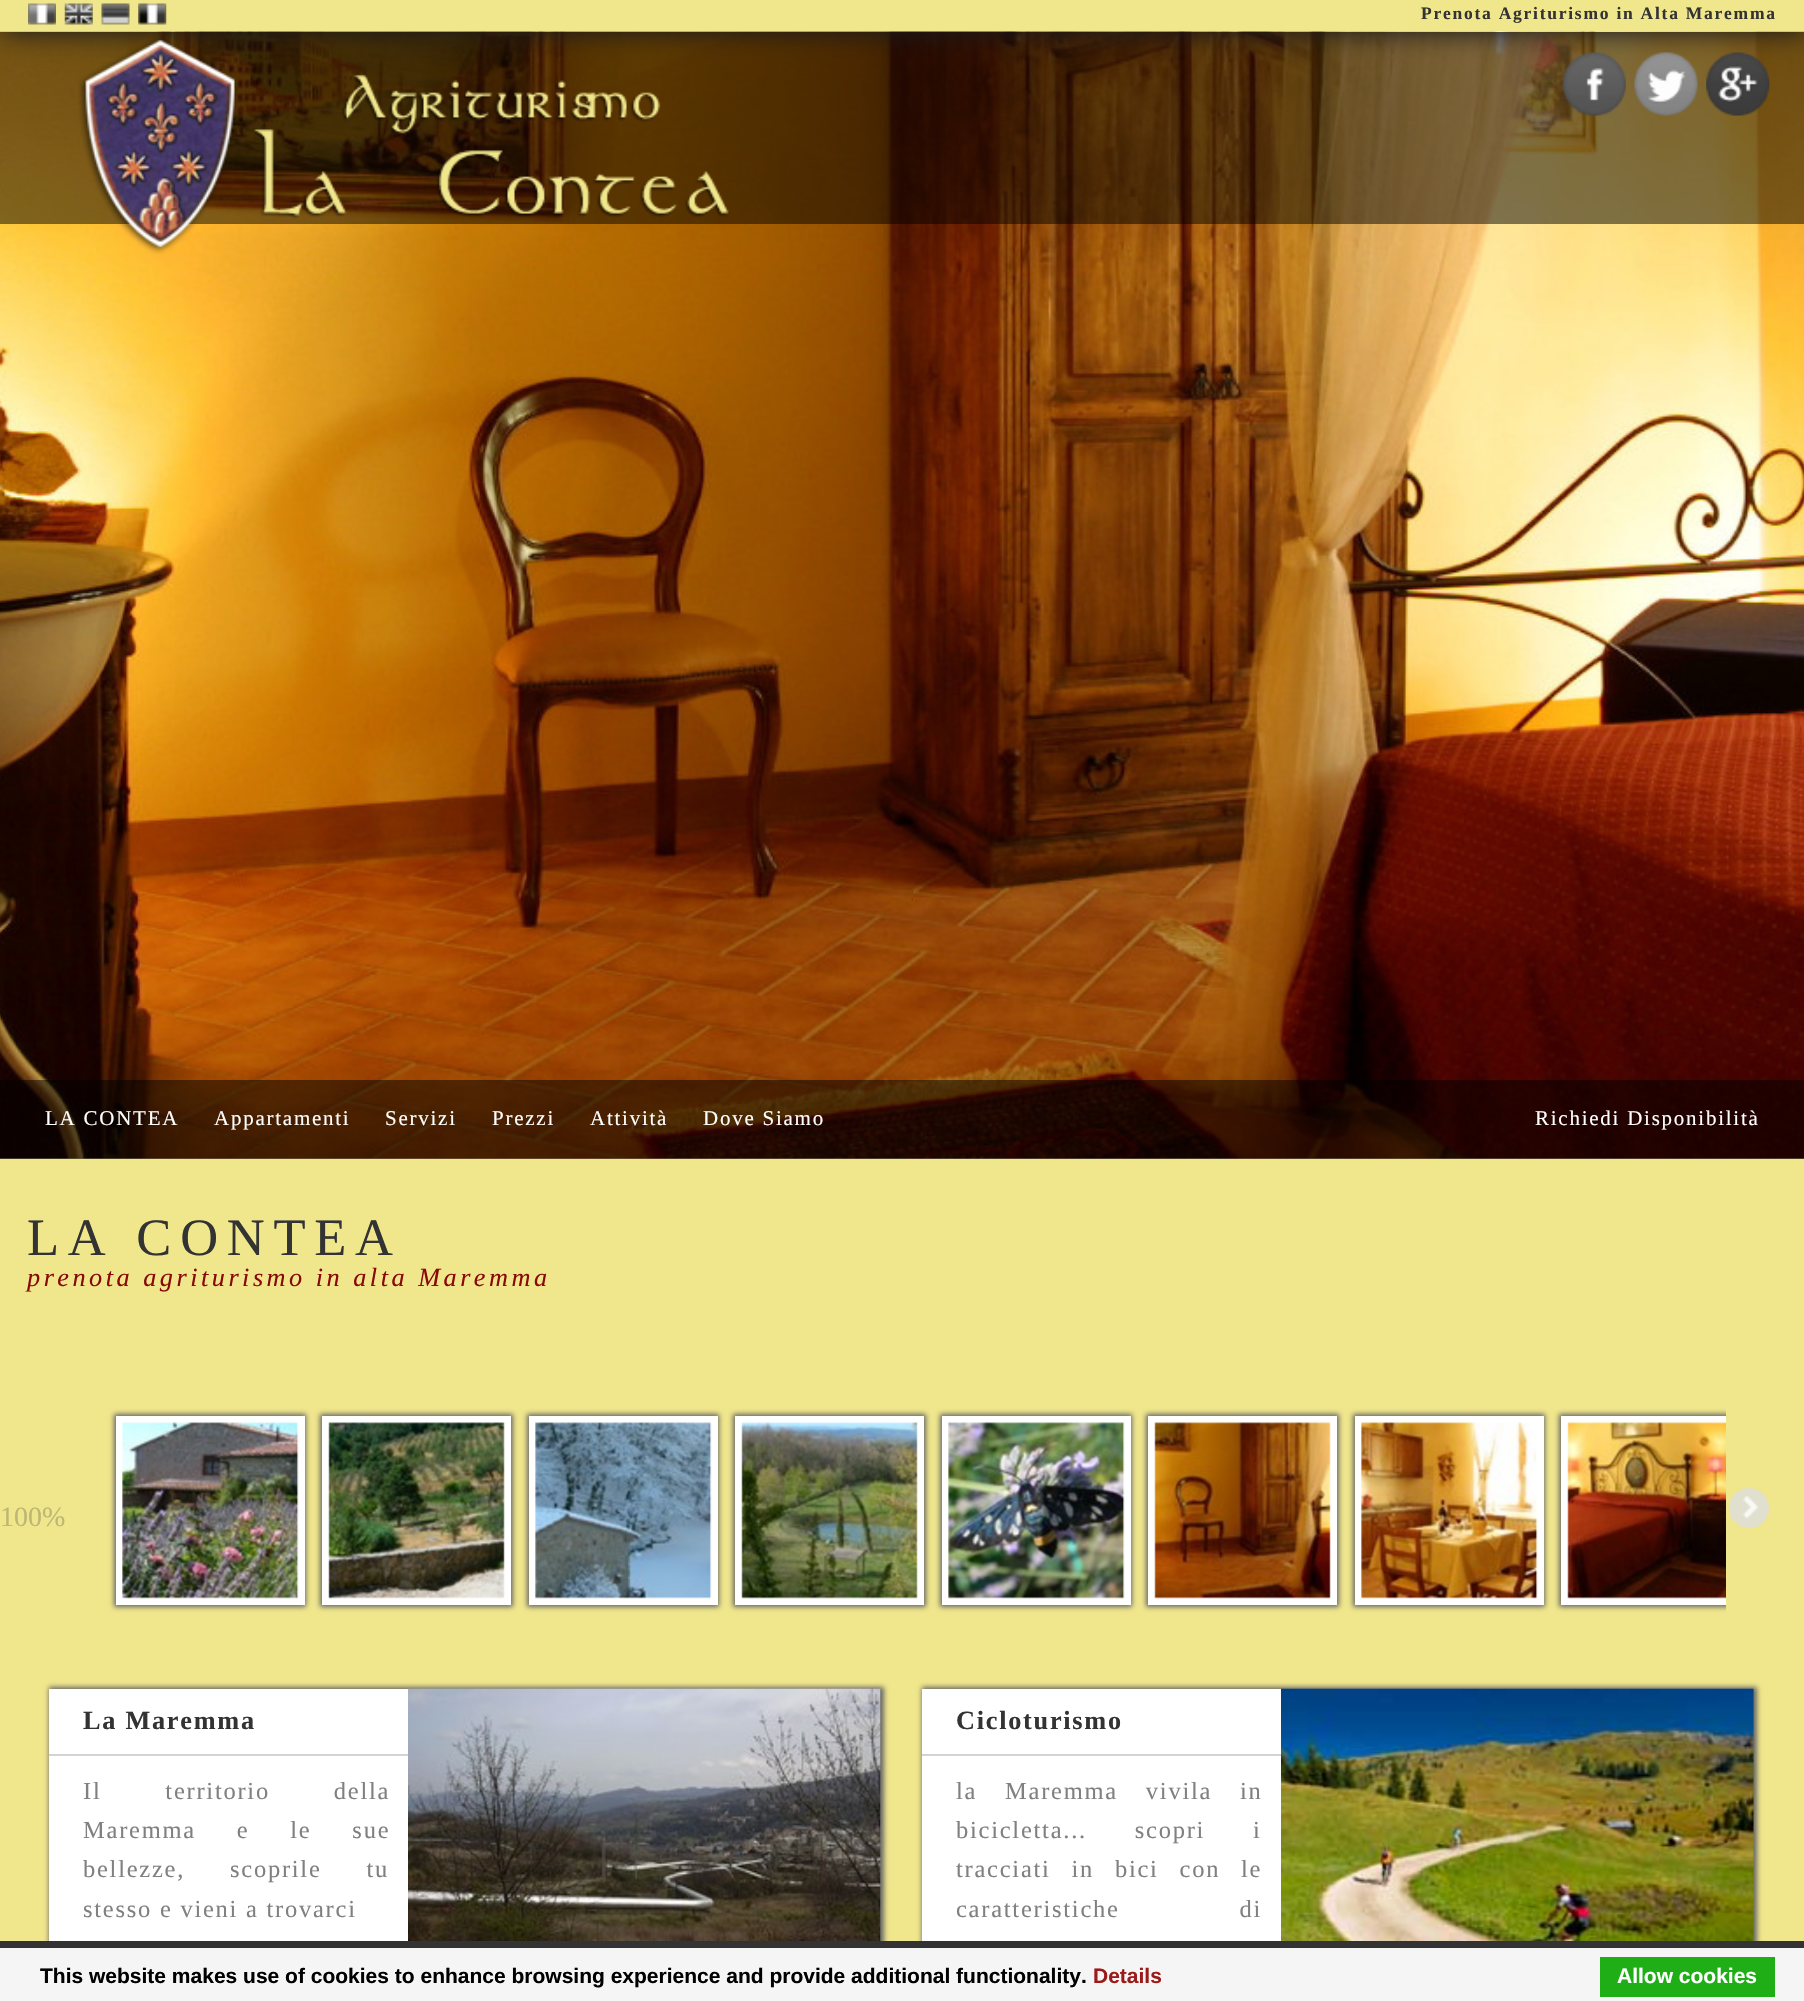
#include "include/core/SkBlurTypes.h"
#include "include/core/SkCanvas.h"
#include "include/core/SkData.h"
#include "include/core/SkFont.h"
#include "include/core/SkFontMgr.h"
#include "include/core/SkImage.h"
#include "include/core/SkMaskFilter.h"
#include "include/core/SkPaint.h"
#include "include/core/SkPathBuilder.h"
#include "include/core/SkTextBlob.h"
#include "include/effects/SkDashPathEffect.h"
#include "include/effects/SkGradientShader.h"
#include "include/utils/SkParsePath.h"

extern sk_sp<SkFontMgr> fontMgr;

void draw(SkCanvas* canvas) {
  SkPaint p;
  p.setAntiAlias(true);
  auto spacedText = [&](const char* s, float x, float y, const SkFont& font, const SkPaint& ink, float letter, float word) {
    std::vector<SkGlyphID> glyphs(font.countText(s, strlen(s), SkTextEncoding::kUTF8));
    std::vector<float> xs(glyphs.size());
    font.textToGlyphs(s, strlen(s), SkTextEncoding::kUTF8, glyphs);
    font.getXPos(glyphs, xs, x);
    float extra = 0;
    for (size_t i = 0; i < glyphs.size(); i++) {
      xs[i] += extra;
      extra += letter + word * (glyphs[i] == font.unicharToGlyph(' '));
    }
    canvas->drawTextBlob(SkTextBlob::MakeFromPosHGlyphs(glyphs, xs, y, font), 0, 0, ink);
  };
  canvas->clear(SkColorSetRGB(240, 230, 140));
  canvas->drawImageRect(SkImages::DeferredFromEncodedData(SkData::MakeFromFileName("images/5.png")), SkRect::MakeLTRB(0, 31, 1804, 1159), SkSamplingOptions());
  canvas->save();
  canvas->clipPath(SkPathBuilder(SkPathFillType::kEvenOdd).moveTo(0, 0).lineTo(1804, 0).lineTo(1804, 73).lineTo(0, 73).close().moveTo(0, 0).lineTo(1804, 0).lineTo(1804, 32).lineTo(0, 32).close().detach(), true);
  p.setColor(SkColorSetRGB(51, 51, 51));
  p.setMaskFilter(SkMaskFilter::MakeBlur(kNormal_SkBlurStyle, 13));
  canvas->drawRect(SkRect::MakeLTRB(2, 2, 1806, 33), p);
  p.setMaskFilter(nullptr);
  canvas->restore();
  canvas->drawImageRect(SkImages::DeferredFromEncodedData(SkData::MakeFromFileName("images/1.png")), SkRect::MakeLTRB(28, 3, 56, 25), SkSamplingOptions());
  canvas->drawImageRect(SkImages::DeferredFromEncodedData(SkData::MakeFromFileName("images/2.png")), SkRect::MakeLTRB(64, 3, 93, 25), SkSamplingOptions());
  canvas->drawImageRect(SkImages::DeferredFromEncodedData(SkData::MakeFromFileName("images/3.png")), SkRect::MakeLTRB(101, 3, 130, 25), SkSamplingOptions());
  canvas->drawImageRect(SkImages::DeferredFromEncodedData(SkData::MakeFromFileName("images/4.png")), SkRect::MakeLTRB(138, 3, 167, 25), SkSamplingOptions());
  p.setColor(SkColorSetARGB(128, 0, 0, 0));
  canvas->drawRect(SkRect::MakeLTRB(0, 32, 1804, 224), p);
  canvas->drawImageRect(SkImages::DeferredFromEncodedData(SkData::MakeFromFileName("images/6.png")), SkRect::MakeLTRB(78, 38, 729, 254), SkSamplingOptions());
  canvas->drawImageRect(SkImages::DeferredFromEncodedData(SkData::MakeFromFileName("images/7.png")), SkRect::MakeLTRB(1562, 52, 1626, 116), SkSamplingOptions());
  canvas->drawImageRect(SkImages::DeferredFromEncodedData(SkData::MakeFromFileName("images/8.png")), SkRect::MakeLTRB(1634, 52, 1698, 116), SkSamplingOptions());
  canvas->drawImageRect(SkImages::DeferredFromEncodedData(SkData::MakeFromFileName("images/9.png")), SkRect::MakeLTRB(1706, 52, 1770, 116), SkSamplingOptions());
  canvas->drawRect(SkRect::MakeLTRB(0, 1080, 1804, 1159), p);
  p.setColor(SkColorSetRGB(102, 102, 102));
  p.setMaskFilter(SkMaskFilter::MakeBlur(kNormal_SkBlurStyle, 2.5f));
  canvas->drawRect(SkRect::MakeLTRB(114, 1414, 306, 1607), p);
  p.setMaskFilter(nullptr);
  p.setColor(SK_ColorWHITE);
  canvas->drawRect(SkRect::MakeLTRB(116, 1416, 305, 1605), p);
  canvas->drawImageRect(SkImages::DeferredFromEncodedData(SkData::MakeFromFileName("images/10.png")), SkRect::MakeLTRB(122, 1422, 299, 1599), SkSamplingOptions());
  p.setColor(SkColorSetRGB(102, 102, 102));
  p.setMaskFilter(SkMaskFilter::MakeBlur(kNormal_SkBlurStyle, 2.5f));
  canvas->drawRect(SkRect::MakeLTRB(320, 1414, 513, 1607), p);
  p.setMaskFilter(nullptr);
  p.setColor(SK_ColorWHITE);
  canvas->drawRect(SkRect::MakeLTRB(322, 1416, 511, 1605), p);
  canvas->drawImageRect(SkImages::DeferredFromEncodedData(SkData::MakeFromFileName("images/11.png")), SkRect::MakeLTRB(328, 1422, 505, 1599), SkSamplingOptions());
  p.setColor(SkColorSetRGB(102, 102, 102));
  p.setMaskFilter(SkMaskFilter::MakeBlur(kNormal_SkBlurStyle, 2.5f));
  canvas->drawRect(SkRect::MakeLTRB(527, 1414, 719, 1607), p);
  p.setMaskFilter(nullptr);
  p.setColor(SK_ColorWHITE);
  canvas->drawRect(SkRect::MakeLTRB(529, 1416, 718, 1605), p);
  canvas->drawImageRect(SkImages::DeferredFromEncodedData(SkData::MakeFromFileName("images/12.png")), SkRect::MakeLTRB(535, 1422, 712, 1599), SkSamplingOptions());
  p.setColor(SkColorSetRGB(102, 102, 102));
  p.setMaskFilter(SkMaskFilter::MakeBlur(kNormal_SkBlurStyle, 2.5f));
  canvas->drawRect(SkRect::MakeLTRB(733, 1414, 926, 1607), p);
  p.setMaskFilter(nullptr);
  p.setColor(SK_ColorWHITE);
  canvas->drawRect(SkRect::MakeLTRB(735, 1416, 924, 1605), p);
  canvas->drawImageRect(SkImages::DeferredFromEncodedData(SkData::MakeFromFileName("images/13.png")), SkRect::MakeLTRB(741, 1422, 918, 1599), SkSamplingOptions());
  p.setColor(SkColorSetRGB(102, 102, 102));
  p.setMaskFilter(SkMaskFilter::MakeBlur(kNormal_SkBlurStyle, 2.5f));
  canvas->drawRect(SkRect::MakeLTRB(940, 1414, 1132, 1607), p);
  p.setMaskFilter(nullptr);
  p.setColor(SK_ColorWHITE);
  canvas->drawRect(SkRect::MakeLTRB(942, 1416, 1131, 1605), p);
  canvas->drawImageRect(SkImages::DeferredFromEncodedData(SkData::MakeFromFileName("images/14.png")), SkRect::MakeLTRB(948, 1422, 1125, 1599), SkSamplingOptions());
  p.setColor(SkColorSetRGB(102, 102, 102));
  p.setMaskFilter(SkMaskFilter::MakeBlur(kNormal_SkBlurStyle, 2.5f));
  canvas->drawRect(SkRect::MakeLTRB(1146, 1414, 1339, 1607), p);
  p.setMaskFilter(nullptr);
  p.setColor(SK_ColorWHITE);
  canvas->drawRect(SkRect::MakeLTRB(1148, 1416, 1337, 1605), p);
  canvas->drawImageRect(SkImages::DeferredFromEncodedData(SkData::MakeFromFileName("images/15.png")), SkRect::MakeLTRB(1154, 1422, 1331, 1599), SkSamplingOptions());
  p.setColor(SkColorSetRGB(102, 102, 102));
  p.setMaskFilter(SkMaskFilter::MakeBlur(kNormal_SkBlurStyle, 2.5f));
  canvas->drawRect(SkRect::MakeLTRB(1353, 1414, 1545, 1607), p);
  p.setMaskFilter(nullptr);
  p.setColor(SK_ColorWHITE);
  canvas->drawRect(SkRect::MakeLTRB(1355, 1416, 1544, 1605), p);
  canvas->drawImageRect(SkImages::DeferredFromEncodedData(SkData::MakeFromFileName("images/16.png")), SkRect::MakeLTRB(1361, 1422, 1538, 1599), SkSamplingOptions());
  canvas->save();
  canvas->clipRect(SkRect::MakeLTRB(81, 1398, 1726, 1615));
  p.setColor(SkColorSetRGB(102, 102, 102));
  p.setMaskFilter(SkMaskFilter::MakeBlur(kNormal_SkBlurStyle, 2.5f));
  canvas->drawRect(SkRect::MakeLTRB(1559, 1414, 1752, 1607), p);
  p.setMaskFilter(nullptr);
  canvas->restore();
  p.setColor(SK_ColorWHITE);
  canvas->drawRect(SkRect::MakeLTRB(1561, 1416, 1726, 1605), p);
  canvas->drawImageRect(SkImages::DeferredFromEncodedData(SkData::MakeFromFileName("images/17.png")), SkRect::MakeLTRB(1567, 1422, 1726, 1599), SkSamplingOptions());
  p.setColor(SkColorSetRGB(225, 223, 205));
  canvas->drawCircle(1749, 1508, 20, p);
  canvas->drawImageRect(SkImages::DeferredFromEncodedData(SkData::MakeFromFileName("images/18.png")), SkRect::MakeLTRB(1742, 1496, 1759, 1519), SkSamplingOptions());
  p.setColor(SkColorSetRGB(102, 102, 102));
  p.setMaskFilter(SkMaskFilter::MakeBlur(kNormal_SkBlurStyle, 2.5f));
  canvas->drawRect(SkRect::MakeLTRB(49, 1687, 884, 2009), p);
  p.setMaskFilter(nullptr);
  canvas->drawImageRect(SkImages::DeferredFromEncodedData(SkData::MakeFromFileName("images/19.png")), SkRect::MakeLTRB(407, 1688, 881, 1941), SkSamplingOptions());
  p.setColor(SK_ColorWHITE);
  canvas->drawRect(SkRect::MakeLTRB(49, 1689, 408, 1941), p);
  p.setColor(SkColorSetRGB(211, 211, 211));
  canvas->drawRect(SkRect::MakeLTRB(49, 1754, 408, 1756), p);
  p.setColor(SkColorSetRGB(102, 102, 102));
  p.setMaskFilter(SkMaskFilter::MakeBlur(kNormal_SkBlurStyle, 2.5f));
  canvas->drawRect(SkRect::MakeLTRB(922, 1687, 1757, 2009), p);
  p.setMaskFilter(nullptr);
  p.setColor(SK_ColorWHITE);
  canvas->drawRect(SkRect::MakeLTRB(922, 1689, 1281, 1941), p);
  p.setColor(SkColorSetRGB(211, 211, 211));
  canvas->drawRect(SkRect::MakeLTRB(922, 1754, 1281, 1756), p);
  canvas->drawImageRect(SkImages::DeferredFromEncodedData(SkData::MakeFromFileName("images/20.png")), SkRect::MakeLTRB(1281, 1688, 1754, 1941), SkSamplingOptions());
  p.setColor(SkColorSetRGB(245, 245, 245));
  canvas->drawRect(SkRect::MakeLTRB(0, 1948, 1804, 2001), p);
  p.setColor(SkColorSetRGB(51, 51, 51));
  canvas->drawRect(SkRect::MakeLTRB(0, 1941, 1804, 1948), p);
  p.setColor(SkColorSetRGB(31, 174, 22));
  canvas->drawRect(SkRect::MakeLTRB(1600, 1957, 1775, 1997), p);
  SkFont font1(fontMgr->matchFamilyStyle("Liberation Serif", SkFontStyle::Bold()), 17.5f);
  font1.setSubpixel(true);
  p.setColor(SkColorSetRGB(51, 51, 51));
  spacedText("Prenota Agriturismo in Alta Maremma", 1421, 19, font1, p, 1.75f, 0);
  SkFont font2(fontMgr->matchFamilyStyle("Liberation Serif", SkFontStyle::Normal()), 21);
  font2.setSubpixel(true);
  p.setColor(SK_ColorWHITE);
  spacedText("LA CONTEA", 45, 1125, font2, p, 1.75f, 0);
  spacedText("Appartamenti", 214, 1125, font2, p, 1.75f, 0);
  spacedText("Servizi", 385, 1125, font2, p, 1.75f, 0);
  spacedText("Prezzi", 492, 1125, font2, p, 1.75f, 0);
  spacedText("Attività", 590, 1125, font2, p, 1.75f, 0);
  spacedText("Dove Siamo", 703, 1125, font2, p, 1.75f, 0);
  spacedText("Richiedi Disponibilità", 1535, 1125, font2, p, 1.75f, 0);
  SkFont font3(fontMgr->matchFamilyStyle("Liberation Serif", SkFontStyle::Normal()), 52.5f);
  font3.setSubpixel(true);
  p.setColor(SkColorSetRGB(51, 51, 51));
  spacedText("LA CONTEA", 27, 1255, font3, p, 8.75f, 0);
  SkFont font4(fontMgr->matchFamilyStyle("Liberation Serif", SkFontStyle::Italic()), 26.25f);
  font4.setSubpixel(true);
  p.setColor(SkColorSetRGB(137, 8, 8));
  spacedText("prenota agriturismo in alta Maremma", 27, 1286, font4, p, 3.5f, 0);
  SkFont font5(fontMgr->matchFamilyStyle("Liberation Serif", SkFontStyle::Bold()), 26.25f);
  font5.setSubpixel(true);
  p.setColor(SkColorSetRGB(51, 51, 51));
  spacedText("La Maremma", 83, 1729, font5, p, 1.75f, 0);
  SkFont font6(fontMgr->matchFamilyStyle("Liberation Serif", SkFontStyle::Normal()), 24.5f);
  font6.setSubpixel(true);
  p.setColor(SkColorSetRGB(128, 128, 128));
  spacedText("Il territorio della", 83, 1799, font6, p, 1.75f, 56);
  spacedText("Maremma e le sue", 83, 1838, font6, p, 1.75f, 33);
  spacedText("bellezze, scoprile tu", 83, 1877, font6, p, 1.75f, 37);
  spacedText("stesso e vieni a trovarci", 83, 1917, font6, p, 1.75f, 0);
  p.setColor(SkColorSetRGB(51, 51, 51));
  spacedText("Cicloturismo", 956, 1729, font5, p, 1.75f, 0);
  p.setColor(SkColorSetRGB(128, 128, 128));
  spacedText("la Maremma vivila in", 956, 1799, font6, p, 1.75f, 20);
  spacedText("bicicletta... scopri i", 956, 1838, font6, p, 1.75f, 40);
  spacedText("tracciati in bici con le", 956, 1877, font6, p, 1.75f, 13);
  spacedText("caratteristiche di", 956, 1917, font6, p, 1.75f, 112);
  SkFont font7(fontMgr->matchFamilyStyle("Liberation Serif", SkFontStyle::Normal()), 28);
  font7.setSubpixel(true);
  p.setColor(SkColorSetRGB(189, 182, 116));
  canvas->drawString("100%", 0, 1526, font7, p);
  SkFont font8(fontMgr->matchFamilyStyle("Liberation Sans", SkFontStyle::Bold()), 21);
  font8.setSubpixel(true);
  p.setColor(SK_ColorBLACK);
  canvas->drawString("This website makes use of cookies to enhance browsing experience and provide additional functionality.", 40, 1983, font8, p);
  p.setColor(SkColorSetRGB(155, 26, 26));
  canvas->drawString("Details", 1093, 1983, font8, p);
  p.setColor(SK_ColorWHITE);
  canvas->drawString("Allow cookies", 1617, 1983, font8, p);
}
